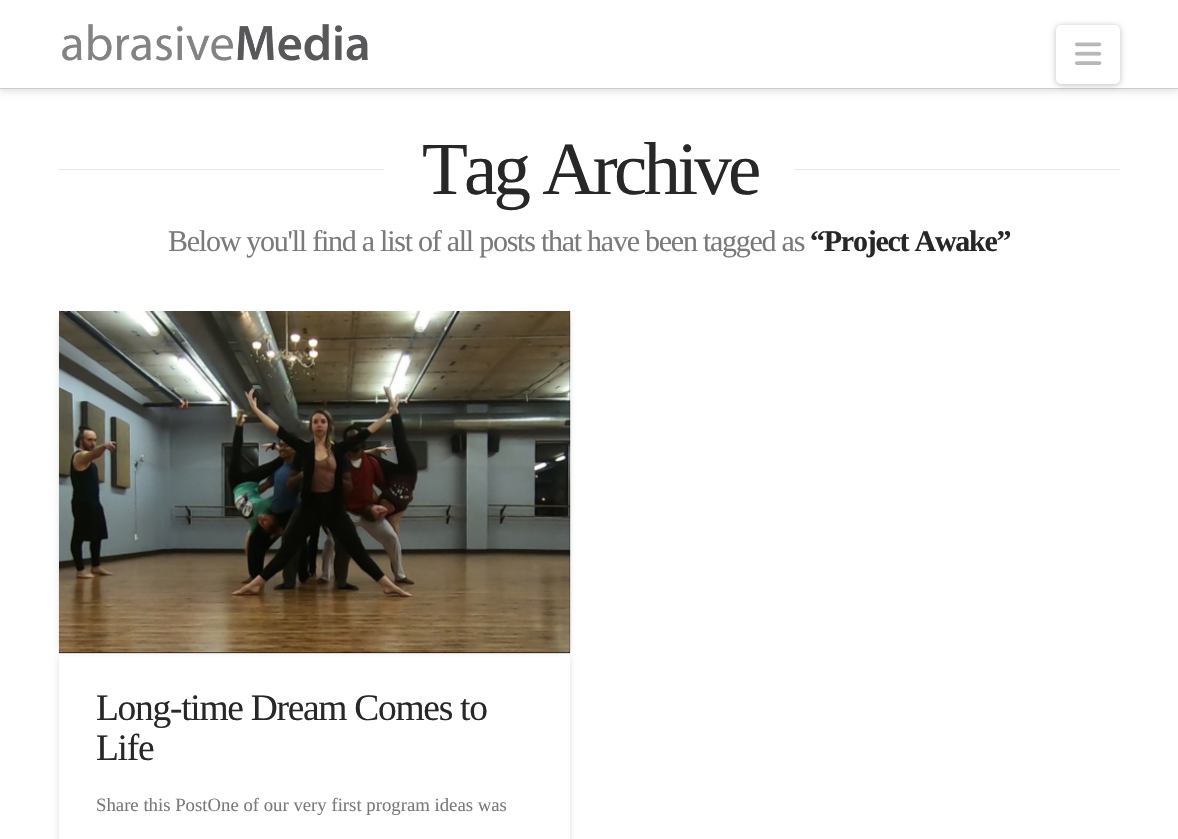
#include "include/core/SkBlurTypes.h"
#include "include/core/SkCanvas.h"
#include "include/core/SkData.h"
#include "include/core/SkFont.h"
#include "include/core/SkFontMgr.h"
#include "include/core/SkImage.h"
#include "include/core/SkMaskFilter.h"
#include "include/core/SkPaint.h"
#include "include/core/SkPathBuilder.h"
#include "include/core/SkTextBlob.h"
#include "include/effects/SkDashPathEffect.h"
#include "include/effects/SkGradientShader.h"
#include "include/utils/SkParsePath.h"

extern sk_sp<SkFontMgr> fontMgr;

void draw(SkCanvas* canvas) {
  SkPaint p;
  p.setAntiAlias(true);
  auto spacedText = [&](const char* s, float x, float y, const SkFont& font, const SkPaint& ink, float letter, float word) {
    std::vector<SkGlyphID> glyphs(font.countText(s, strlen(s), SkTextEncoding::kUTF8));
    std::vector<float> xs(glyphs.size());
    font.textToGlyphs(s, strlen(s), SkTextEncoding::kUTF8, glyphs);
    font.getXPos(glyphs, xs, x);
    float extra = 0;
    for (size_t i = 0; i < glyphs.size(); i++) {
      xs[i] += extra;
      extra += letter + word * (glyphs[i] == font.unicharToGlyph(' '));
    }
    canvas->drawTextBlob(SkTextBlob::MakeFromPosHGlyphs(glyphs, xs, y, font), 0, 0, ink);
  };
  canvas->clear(SK_ColorWHITE);
  p.setColor(SkColorSetARGB(33, 0, 0, 0));
  p.setMaskFilter(SkMaskFilter::MakeBlur(kNormal_SkBlurStyle, 3.5f));
  canvas->drawRect(SkRect::MakeLTRB(0, 3, 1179, 91), p);
  p.setMaskFilter(nullptr);
  p.setColor(SK_ColorWHITE);
  canvas->drawRect(SkRect::MakeLTRB(0, 0, 1178, 88), p);
  p.setColor(SkColorSetRGB(204, 204, 204));
  canvas->drawRect(SkRect::MakeLTRB(0, 88, 1178, 89), p);
  canvas->drawImageRect(SkImages::DeferredFromEncodedData(SkData::MakeFromFileName("images/1.png")), SkRect::MakeLTRB(62, 24, 368, 61), SkSamplingOptions());
  p.setColor(SkColorSetARGB(64, 0, 0, 0));
  p.setMaskFilter(SkMaskFilter::MakeBlur(kNormal_SkBlurStyle, 3));
  canvas->drawRoundRect(SkRect::MakeLTRB(1056, 26, 1120, 85), 5, 5, p);
  p.setMaskFilter(nullptr);
  p.setColor(SK_ColorWHITE);
  canvas->drawRoundRect(SkRect::MakeLTRB(1056, 25, 1120, 84), 5, 5, p);
  canvas->drawImageRect(SkImages::DeferredFromEncodedData(SkData::MakeFromFileName("images/2.png")), SkRect::MakeLTRB(1075, 42, 1102, 65), SkSamplingOptions());
  p.setColor(SkColorSetRGB(230, 230, 230));
  canvas->drawRect(SkRect::MakeLTRB(59, 169, 384, 170), p);
  canvas->drawRect(SkRect::MakeLTRB(795, 169, 1120, 170), p);
  p.setColor(SkColorSetARGB(33, 0, 0, 0));
  p.setMaskFilter(SkMaskFilter::MakeBlur(kNormal_SkBlurStyle, 2.5f));
  canvas->drawRect(SkRect::MakeLTRB(59, 319, 560, 651), p);
  p.setMaskFilter(nullptr);
  p.setMaskFilter(SkMaskFilter::MakeBlur(kNormal_SkBlurStyle, 2.5f));
  canvas->drawRect(SkRect::MakeLTRB(69, 319, 570, 651), p);
  p.setMaskFilter(nullptr);
  canvas->save();
  canvas->clipPath(SkPathBuilder(SkPathFillType::kEvenOdd).moveTo(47, 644).lineTo(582, 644).lineTo(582, 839).lineTo(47, 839).close().moveTo(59, 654).lineTo(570, 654).lineTo(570, 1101).cubicTo(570, 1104, 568, 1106, 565, 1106).lineTo(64, 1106).cubicTo(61, 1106, 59, 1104, 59, 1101).close().detach(), true);
  p.setMaskFilter(SkMaskFilter::MakeBlur(kNormal_SkBlurStyle, 3.5f));
  canvas->drawRoundRect(SkRect::MakeLTRB(59, 656, 570, 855), 5, 5, p);
  p.setMaskFilter(nullptr);
  canvas->restore();
  p.setColor(SkColorSetRGB(221, 221, 221));
  canvas->drawRect(SkRect::MakeLTRB(59, 653, 570, 654), p);
  p.setColor(SK_ColorBLACK);
  canvas->drawRect(SkRect::MakeLTRB(59, 311, 570, 653), p);
  canvas->drawImageRect(SkImages::DeferredFromEncodedData(SkData::MakeFromFileName("images/3.png")), SkRect::MakeLTRB(59, 311, 571, 653), SkSamplingOptions());
  SkFont font1(fontMgr->matchFamilyStyle("Liberation Serif", SkFontStyle::Normal()), 75);
  font1.setSubpixel(true);
  p.setColor(SkColorSetRGB(39, 39, 39));
  spacedText("Tag Archive", 422, 194, font1, p, -3.75f, 0);
  SkFont font2(fontMgr->matchFamilyStyle("Liberation Serif", SkFontStyle::Normal()), 30);
  font2.setSubpixel(true);
  p.setColor(SkColorSetRGB(122, 122, 122));
  spacedText("Below you'll find a list of all posts that have been tagged as", 168, 251, font2, p, -1.25f, 0);
  SkFont font3(fontMgr->matchFamilyStyle("Liberation Serif", SkFontStyle::Bold()), 30);
  font3.setSubpixel(true);
  p.setColor(SkColorSetRGB(39, 39, 39));
  spacedText("“Project Awake”", 810, 251, font3, p, -1.25f, 0);
  SkFont font4(fontMgr->matchFamilyStyle("Liberation Serif", SkFontStyle::Normal()), 37.5f);
  font4.setSubpixel(true);
  spacedText("Long-time Dream Comes to", 96, 720, font4, p, -1.3f, 0);
  spacedText("Life", 96, 760, font4, p, -1.3f, 0);
  SkFont font5(fontMgr->matchFamilyStyle("Liberation Serif", SkFontStyle::Normal()), 18.75f);
  font5.setSubpixel(true);
  p.setColor(SkColorSetRGB(122, 122, 122));
  canvas->drawString("Share this PostOne of our very first program ideas was", 96, 811, font5, p);
}
